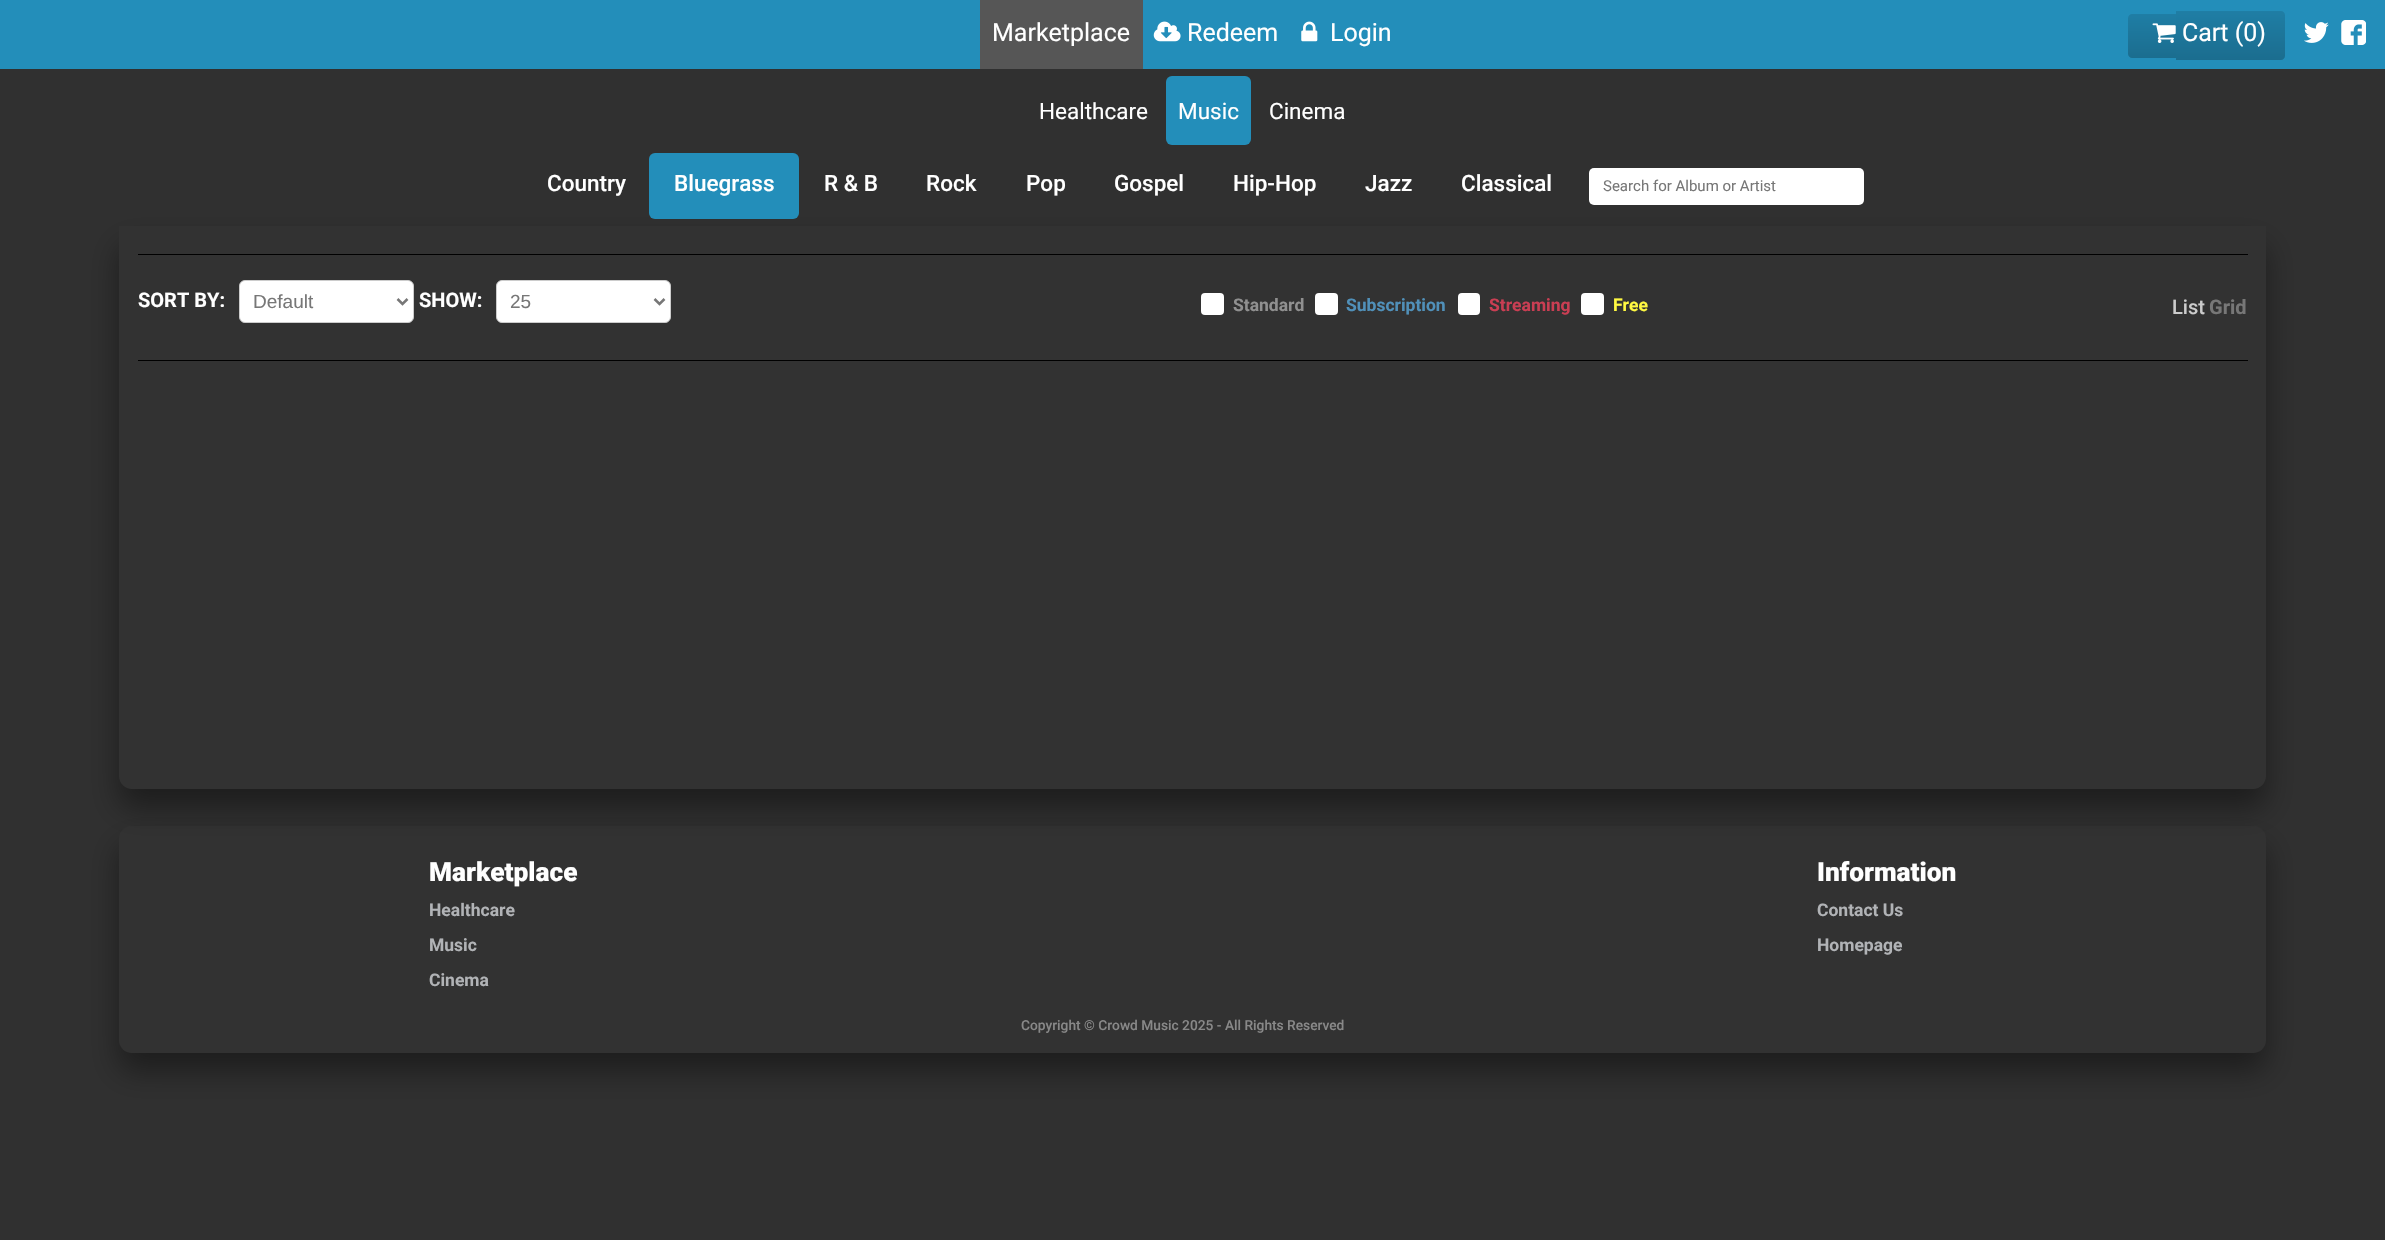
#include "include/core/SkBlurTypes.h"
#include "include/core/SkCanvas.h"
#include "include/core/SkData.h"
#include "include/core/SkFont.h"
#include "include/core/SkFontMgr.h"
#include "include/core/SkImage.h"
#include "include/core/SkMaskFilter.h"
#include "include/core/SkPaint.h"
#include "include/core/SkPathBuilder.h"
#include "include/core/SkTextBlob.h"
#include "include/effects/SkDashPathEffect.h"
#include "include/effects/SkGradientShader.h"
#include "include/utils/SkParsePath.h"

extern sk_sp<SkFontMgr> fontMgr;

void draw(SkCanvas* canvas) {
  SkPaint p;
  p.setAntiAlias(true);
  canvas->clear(SkColorSetRGB(48, 48, 48));
  p.setColor(SkColorSetRGB(35, 142, 186));
  canvas->drawRect(SkRect::MakeLTRB(0, 0, 2385, 69), p);
  p.setColor(SkColorSetRGB(86, 86, 86));
  canvas->drawRect(SkRect::MakeLTRB(980, 0, 1143, 69), p);
  canvas->drawImageRect(SkImages::DeferredFromEncodedData(SkData::MakeFromFileName("images/1.png")), SkRect::MakeLTRB(1153, 21, 1181, 42), SkSamplingOptions());
  canvas->drawImageRect(SkImages::DeferredFromEncodedData(SkData::MakeFromFileName("images/2.png")), SkRect::MakeLTRB(1301, 21, 1318, 42), SkSamplingOptions());
  {
    const SkColor colors[] = {SkColorSetRGB(27, 109, 143), SkColorSetRGB(31, 126, 165)};
    const float stops[] = {0, 1};
    const SkPoint ends[] = {{2152, 58}, {2152, 14}};
    p.setShader(SkGradientShader::MakeLinear(ends, colors, stops, 2, SkTileMode::kClamp));
    p.setAlpha(255);
  }
  canvas->drawPath(SkPathBuilder().moveTo(2132, 14).lineTo(2176, 14).lineTo(2176, 58).lineTo(2132, 58).cubicTo(2130, 58, 2128, 56, 2128, 54).lineTo(2128, 18).cubicTo(2128, 16, 2130, 14, 2132, 14).close().detach(), p);
  {
    const SkColor colors[] = {SkColorSetRGB(27, 109, 143), SkColorSetRGB(31, 126, 165)};
    const float stops[] = {0, 1};
    const SkPoint ends[] = {{2210, 60}, {2210, 11}};
    p.setShader(SkGradientShader::MakeLinear(ends, colors, stops, 2, SkTileMode::kClamp));
    p.setAlpha(255);
  }
  canvas->drawRect(SkRect::MakeLTRB(2176, 11, 2244, 60), p);
  {
    const SkColor colors[] = {SkColorSetRGB(27, 109, 143), SkColorSetRGB(31, 126, 165)};
    const float stops[] = {0, 1};
    const SkPoint ends[] = {{2251, 60}, {2251, 11}};
    p.setShader(SkGradientShader::MakeLinear(ends, colors, stops, 2, SkTileMode::kClamp));
    p.setAlpha(255);
  }
  canvas->drawRect(SkRect::MakeLTRB(2244, 11, 2258, 60), p);
  {
    const SkColor colors[] = {SkColorSetRGB(27, 109, 143), SkColorSetRGB(31, 126, 165)};
    const float stops[] = {0, 1};
    const SkPoint ends[] = {{2271, 60}, {2271, 11}};
    p.setShader(SkGradientShader::MakeLinear(ends, colors, stops, 2, SkTileMode::kClamp));
    p.setAlpha(255);
  }
  canvas->drawPath(SkPathBuilder().moveTo(2258, 11).lineTo(2281, 11).cubicTo(2283, 11, 2285, 13, 2285, 15).lineTo(2285, 56).cubicTo(2285, 58, 2283, 60, 2281, 60).lineTo(2258, 60).close().detach(), p);
  canvas->drawImageRect(SkImages::DeferredFromEncodedData(SkData::MakeFromFileName("images/3.png")), SkRect::MakeLTRB(2152, 23, 2176, 43), SkSamplingOptions());
  canvas->drawImageRect(SkImages::DeferredFromEncodedData(SkData::MakeFromFileName("images/4.png")), SkRect::MakeLTRB(2304, 22, 2329, 43), SkSamplingOptions());
  canvas->drawImageRect(SkImages::DeferredFromEncodedData(SkData::MakeFromFileName("images/5.png")), SkRect::MakeLTRB(2341, 20, 2366, 45), SkSamplingOptions());
  p.setShader(nullptr);
  p.setColor(SkColorSetRGB(35, 142, 186));
  canvas->drawRoundRect(SkRect::MakeLTRB(1166, 76, 1251, 145), 6, 6, p);
  p.setColor(SkColorSetARGB(102, 0, 0, 0));
  p.setMaskFilter(SkMaskFilter::MakeBlur(kNormal_SkBlurStyle, 15));
  canvas->drawRoundRect(SkRect::MakeLTRB(119, 845, 2266, 1071), 13, 13, p);
  p.setMaskFilter(nullptr);
  p.setColor(SkColorSetRGB(50, 50, 50));
  canvas->drawRoundRect(SkRect::MakeLTRB(119, 826, 2266, 1053), 13, 13, p);
  p.setColor(SkColorSetARGB(102, 0, 0, 0));
  p.setMaskFilter(SkMaskFilter::MakeBlur(kNormal_SkBlurStyle, 15));
  canvas->drawRoundRect(SkRect::MakeLTRB(119, 245, 2266, 808), 13, 13, p);
  p.setMaskFilter(nullptr);
  p.setColor(SkColorSetRGB(35, 142, 186));
  canvas->drawRoundRect(SkRect::MakeLTRB(649, 153, 799, 219), 6, 6, p);
  p.setColor(SK_ColorWHITE);
  canvas->drawRoundRect(SkRect::MakeLTRB(1589, 168, 1864, 205), 5, 5, p);
  p.setColor(SkColorSetRGB(50, 50, 50));
  canvas->drawPath(SkPathBuilder().moveTo(119, 226).lineTo(2266, 226).lineTo(2266, 776).cubicTo(2266, 783, 2260, 789, 2253, 789).lineTo(132, 789).cubicTo(125, 789, 119, 783, 119, 776).close().detach(), p);
  p.setColor(SK_ColorBLACK);
  canvas->drawRect(SkRect::MakeLTRB(138, 254, 2248, 255), p);
  canvas->drawRect(SkRect::MakeLTRB(138, 360, 2248, 361), p);
  p.setColor(SK_ColorWHITE);
  canvas->drawRoundRect(SkRect::MakeLTRB(239.5f, 280.5f, 413.5f, 322.5f), 5.5f, 5.5f, p);
  p.setStyle(SkPaint::kStroke_Style);
  p.setStrokeWidth(1);
  p.setColor(SkColorSetRGB(204, 204, 204));
  canvas->drawRoundRect(SkRect::MakeLTRB(239.5f, 280.5f, 413.5f, 322.5f), 5.5f, 5.5f, p);
  p.setStrokeWidth(2.5f);
  p.setColor(SkColorSetRGB(119, 119, 119));
  canvas->drawPath(SkPathBuilder().moveTo(397.5f, 299).lineTo(402.5f, 304).lineTo(407.5f, 299).detach(), p);
  p.setStyle(SkPaint::kFill_Style);
  p.setColor(SK_ColorWHITE);
  canvas->drawRoundRect(SkRect::MakeLTRB(496.5f, 280.5f, 670.5f, 322.5f), 5.5f, 5.5f, p);
  p.setStyle(SkPaint::kStroke_Style);
  p.setStrokeWidth(1);
  p.setColor(SkColorSetRGB(204, 204, 204));
  canvas->drawRoundRect(SkRect::MakeLTRB(496.5f, 280.5f, 670.5f, 322.5f), 5.5f, 5.5f, p);
  p.setStrokeWidth(2.5f);
  p.setColor(SkColorSetRGB(119, 119, 119));
  canvas->drawPath(SkPathBuilder().moveTo(654.5f, 299).lineTo(659.5f, 304).lineTo(664.5f, 299).detach(), p);
  p.setStyle(SkPaint::kFill_Style);
  p.setColor(SK_ColorWHITE);
  canvas->drawRoundRect(SkRect::MakeLTRB(1201, 293, 1224, 315), 4, 4, p);
  canvas->drawRoundRect(SkRect::MakeLTRB(1315, 293, 1338, 315), 4, 4, p);
  canvas->drawRoundRect(SkRect::MakeLTRB(1458, 293, 1480, 315), 4, 4, p);
  canvas->drawRoundRect(SkRect::MakeLTRB(1581, 293, 1604, 315), 4, 4, p);
  SkFont font1(fontMgr->matchFamilyStyle("Roboto", SkFontStyle::Normal()), 25);
  font1.setSubpixel(true);
  canvas->drawString("Marketplace", 992, 41, font1, p);
  canvas->drawString("Redeem", 1187, 41, font1, p);
  canvas->drawString("Login", 1330, 41, font1, p);
  canvas->drawString("Cart (0)", 2182, 41, font1, p);
  SkFont font2(fontMgr->matchFamilyStyle("Roboto", SkFontStyle::Normal()), 22.5f);
  font2.setSubpixel(true);
  canvas->drawString("Healthcare", 1039, 119, font2, p);
  canvas->drawString("Music", 1178, 119, font2, p);
  canvas->drawString("Cinema", 1269, 119, font2, p);
  SkFont font3(fontMgr->matchFamilyStyle("Roboto", SkFontStyle(500, SkFontStyle::kNormal_Width, SkFontStyle::kUpright_Slant)), 22.5f);
  font3.setSubpixel(true);
  canvas->drawString("Country", 547, 191, font3, p);
  canvas->drawString("Bluegrass", 674, 191, font3, p);
  canvas->drawString("R & B", 824, 191, font3, p);
  canvas->drawString("Rock", 926, 191, font3, p);
  canvas->drawString("Pop", 1026, 191, font3, p);
  canvas->drawString("Gospel", 1114, 191, font3, p);
  canvas->drawString("Hip-Hop", 1233, 191, font3, p);
  canvas->drawString("Jazz", 1365, 191, font3, p);
  canvas->drawString("Classical", 1461, 191, font3, p);
  SkFont font4(fontMgr->matchFamilyStyle("Roboto", SkFontStyle::Normal()), 15);
  font4.setSubpixel(true);
  p.setColor(SkColorSetRGB(119, 119, 119));
  canvas->drawString("Search for Album or Artist", 1603, 191, font4, p);
  SkFont font5(fontMgr->matchFamilyStyle("Roboto", SkFontStyle::Bold()), 20);
  font5.setSubpixel(true);
  p.setColor(SK_ColorWHITE);
  canvas->drawString("SORT BY:", 138, 307, font5, p);
  SkFont font6(fontMgr->matchFamilyStyle("Liberation Sans", SkFontStyle::Normal()), 19);
  font6.setSubpixel(true);
  p.setColor(SkColorSetRGB(119, 119, 119));
  canvas->drawString("Default", 253, 308, font6, p);
  p.setColor(SK_ColorWHITE);
  canvas->drawString("SHOW:", 419, 307, font5, p);
  p.setColor(SkColorSetRGB(119, 119, 119));
  canvas->drawString("25", 510, 308, font6, p);
  SkFont font7(fontMgr->matchFamilyStyle("Roboto", SkFontStyle::Bold()), 17.5f);
  font7.setSubpixel(true);
  p.setColor(SkColorSetRGB(144, 144, 144));
  canvas->drawString("Standard", 1233, 311, font7, p);
  p.setColor(SkColorSetRGB(80, 144, 185));
  canvas->drawString("Subscription", 1346, 311, font7, p);
  p.setColor(SkColorSetRGB(202, 62, 83));
  canvas->drawString("Streaming", 1489, 311, font7, p);
  p.setColor(SkColorSetRGB(255, 249, 65));
  canvas->drawString("Free", 1613, 311, font7, p);
  SkFont font8(fontMgr->matchFamilyStyle("Roboto", SkFontStyle(500, SkFontStyle::kNormal_Width, SkFontStyle::kUpright_Slant)), 20);
  font8.setSubpixel(true);
  p.setColor(SkColorSetRGB(204, 204, 204));
  canvas->drawString("List", 2172, 314, font8, p);
  p.setColor(SkColorSetRGB(119, 119, 119));
  canvas->drawString("Grid", 2209, 314, font5, p);
  SkFont font9(fontMgr->matchFamilyStyle("Roboto", SkFontStyle(900, SkFontStyle::kNormal_Width, SkFontStyle::kUpright_Slant)), 26.25f);
  font9.setSubpixel(true);
  p.setColor(SK_ColorWHITE);
  canvas->drawString("Marketplace", 429, 881, font9, p);
  p.setColor(SkColorSetRGB(177, 179, 182));
  canvas->drawString("Healthcare", 429, 916, font7, p);
  canvas->drawString("Music", 429, 951, font7, p);
  canvas->drawString("Cinema", 429, 986, font7, p);
  p.setColor(SK_ColorWHITE);
  canvas->drawString("Information", 1817, 881, font9, p);
  p.setColor(SkColorSetRGB(177, 179, 182));
  canvas->drawString("Contact Us", 1817, 916, font7, p);
  canvas->drawString("Homepage", 1817, 951, font7, p);
  SkFont font10(fontMgr->matchFamilyStyle("Roboto", SkFontStyle(500, SkFontStyle::kNormal_Width, SkFontStyle::kUpright_Slant)), 13.75f);
  font10.setSubpixel(true);
  p.setColor(SkColorSetRGB(136, 136, 136));
  canvas->drawString("Copyright © Crowd Music 2025 - All Rights Reserved", 1021, 1030, font10, p);
}
